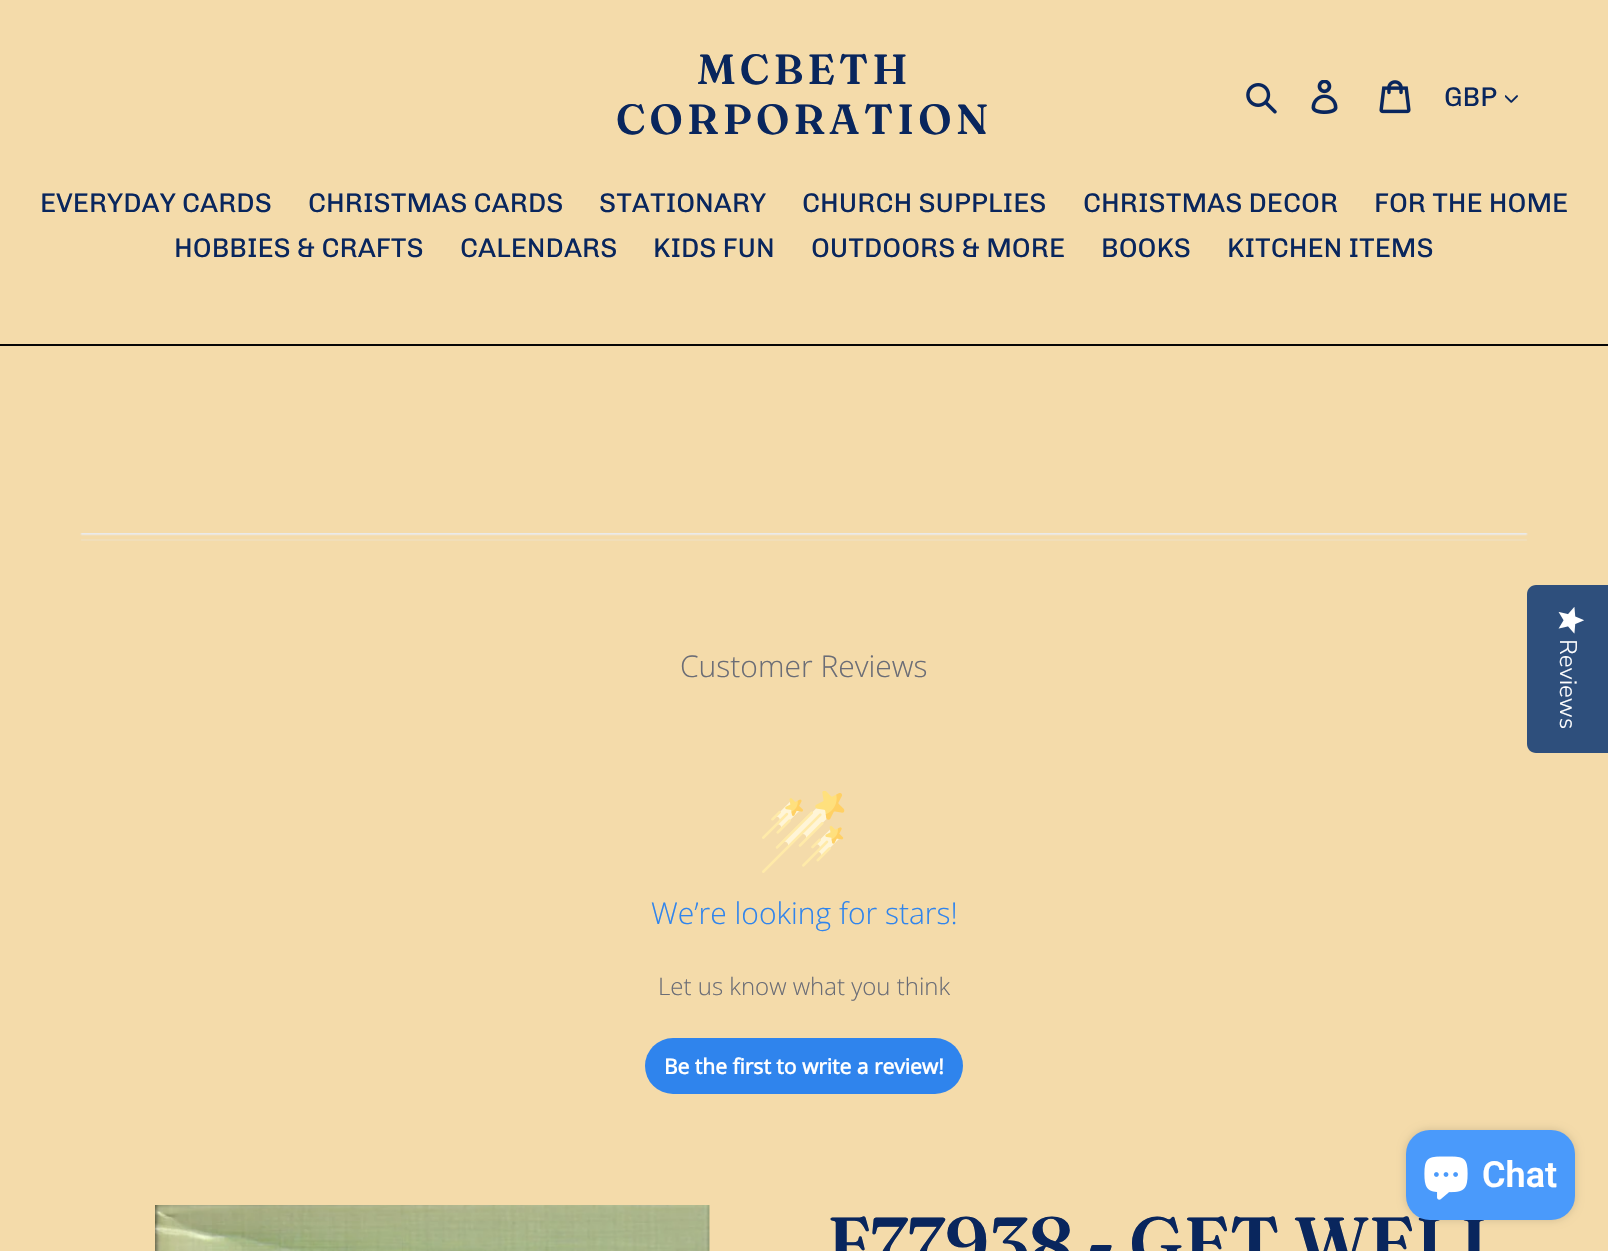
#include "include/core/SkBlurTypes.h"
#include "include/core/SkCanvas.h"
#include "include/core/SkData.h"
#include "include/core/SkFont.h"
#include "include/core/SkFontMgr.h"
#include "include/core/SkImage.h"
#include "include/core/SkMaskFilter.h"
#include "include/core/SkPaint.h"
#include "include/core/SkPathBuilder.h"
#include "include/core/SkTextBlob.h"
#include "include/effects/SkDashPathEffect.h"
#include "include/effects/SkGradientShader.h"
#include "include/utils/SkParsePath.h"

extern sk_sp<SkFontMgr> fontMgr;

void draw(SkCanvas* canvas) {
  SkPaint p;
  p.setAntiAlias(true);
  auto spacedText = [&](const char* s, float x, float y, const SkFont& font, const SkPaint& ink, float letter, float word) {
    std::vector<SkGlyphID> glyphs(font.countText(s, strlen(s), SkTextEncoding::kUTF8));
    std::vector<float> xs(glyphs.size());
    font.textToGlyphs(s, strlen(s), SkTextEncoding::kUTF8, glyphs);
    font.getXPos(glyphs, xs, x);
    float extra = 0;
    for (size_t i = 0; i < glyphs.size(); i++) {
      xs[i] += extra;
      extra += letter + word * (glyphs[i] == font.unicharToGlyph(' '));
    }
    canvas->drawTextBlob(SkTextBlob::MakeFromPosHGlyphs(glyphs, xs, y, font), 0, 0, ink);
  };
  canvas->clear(SkColorSetRGB(244, 219, 170));
  canvas->drawImageRect(SkImages::DeferredFromEncodedData(SkData::MakeFromFileName("images/1.png")), SkRect::MakeLTRB(1246, 83, 1277, 114), SkSamplingOptions());
  canvas->drawImageRect(SkImages::DeferredFromEncodedData(SkData::MakeFromFileName("images/2.png")), SkRect::MakeLTRB(1311, 80, 1338, 114), SkSamplingOptions());
  canvas->drawImageRect(SkImages::DeferredFromEncodedData(SkData::MakeFromFileName("images/3.png")), SkRect::MakeLTRB(1379, 80, 1411, 114), SkSamplingOptions());
  canvas->drawImageRect(SkImages::DeferredFromEncodedData(SkData::MakeFromFileName("images/4.png")), SkRect::MakeLTRB(1505, 95, 1518, 103), SkSamplingOptions());
  p.setColor(SkColorSetRGB(6, 6, 6));
  canvas->drawRect(SkRect::MakeLTRB(0, 344, 1608, 346), p);
  canvas->drawImageRect(SkImages::DeferredFromEncodedData(SkData::MakeFromFileName("images/5.png")), SkRect::MakeLTRB(80, 533, 1528, 541), SkSamplingOptions());
  canvas->drawImageRect(SkImages::DeferredFromEncodedData(SkData::MakeFromFileName("images/6.png")), SkRect::MakeLTRB(762, 791, 845, 873), SkSamplingOptions());
  p.setColor(SkColorSetRGB(47, 132, 237));
  canvas->drawRoundRect(SkRect::MakeLTRB(645, 1038, 963, 1094), 28, 28, p);
  canvas->drawImageRect(SkImages::DeferredFromEncodedData(SkData::MakeFromFileName("images/7.png")), SkRect::MakeLTRB(155, 1205, 710, 1251), SkSamplingOptions());
  p.setColor(SkColorSetARGB(38, 0, 0, 0));
  p.setMaskFilter(SkMaskFilter::MakeBlur(kNormal_SkBlurStyle, 4));
  canvas->drawRoundRect(SkRect::MakeLTRB(1406, 1130, 1575, 1220), 24, 24, p);
  p.setMaskFilter(nullptr);
  p.setColor(SkColorSetRGB(46, 79, 124));
  canvas->drawPath(SkPathBuilder().moveTo(1608, 585).lineTo(1608, 753).lineTo(1536, 753).cubicTo(1531, 753, 1527, 749, 1527, 744).lineTo(1527, 594).cubicTo(1527, 589, 1531, 585, 1536, 585).close().detach(), p);
  canvas->drawImageRect(SkImages::DeferredFromEncodedData(SkData::MakeFromFileName("images/9.png")), SkRect::MakeLTRB(1558, 607, 1584, 634), SkSamplingOptions());
  SkFont font1(fontMgr->matchFamilyStyle("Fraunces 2", SkFontStyle(600, SkFontStyle::kNormal_Width, SkFontStyle::kUpright_Slant)), 42);
  font1.setSubpixel(true);
  p.setColor(SkColorSetRGB(9, 38, 93));
  spacedText("MCBETH", 697, 84, font1, p, 4.25f, 0);
  spacedText("CORPORATION", 616, 134, font1, p, 4.25f, 0);
  SkFont font2(fontMgr->matchFamilyStyle("Chivo", SkFontStyle::Normal()), 27);
  font2.setSubpixel(true);
  canvas->drawString("GBP", 1444, 106, font2, p);
  canvas->drawString("EVERYDAY CARDS", 40, 212, font2, p);
  canvas->drawString("CHRISTMAS CARDS", 308, 212, font2, p);
  canvas->drawString("STATIONARY", 599, 212, font2, p);
  canvas->drawString("CHURCH SUPPLIES", 802, 212, font2, p);
  canvas->drawString("CHRISTMAS DECOR", 1083, 212, font2, p);
  canvas->drawString("FOR THE HOME", 1374, 212, font2, p);
  canvas->drawString("HOBBIES & CRAFTS", 174, 257, font2, p);
  canvas->drawString("CALENDARS", 460, 257, font2, p);
  canvas->drawString("KIDS FUN", 653, 257, font2, p);
  canvas->drawString("OUTDOORS & MORE", 811, 257, font2, p);
  canvas->drawString("BOOKS", 1101, 257, font2, p);
  canvas->drawString("KITCHEN ITEMS", 1227, 257, font2, p);
  SkFont font3(fontMgr->matchFamilyStyle("Open Sans", SkFontStyle(300, SkFontStyle::kNormal_Width, SkFontStyle::kUpright_Slant)), 30);
  font3.setSubpixel(true);
  p.setColor(SkColorSetRGB(107, 109, 118));
  canvas->drawString("Customer Reviews", 680, 677, font3, p);
  p.setColor(SkColorSetRGB(47, 132, 237));
  canvas->drawString("We’re looking for stars!", 651, 924, font3, p);
  SkFont font4(fontMgr->matchFamilyStyle("Open Sans", SkFontStyle(300, SkFontStyle::kNormal_Width, SkFontStyle::kUpright_Slant)), 24);
  font4.setSubpixel(true);
  p.setColor(SkColorSetRGB(107, 109, 118));
  canvas->drawString("Let us know what you think", 658, 995, font4, p);
  SkFont font5(fontMgr->matchFamilyStyle("Open Sans", SkFontStyle::Bold()), 21);
  font5.setSubpixel(true);
  p.setColor(SK_ColorWHITE);
  canvas->drawString("Be the first to write a review!", 664, 1074, font5, p);
  SkFont font6(fontMgr->matchFamilyStyle("Fraunces", SkFontStyle(600, SkFontStyle::kNormal_Width, SkFontStyle::kUpright_Slant)), 72);
  font6.setSubpixel(true);
  p.setColor(SkColorSetRGB(9, 38, 93));
  canvas->drawString("F77938 - GET WELL", 827, 1268, font6, p);
  p.setColor(SkColorSetRGB(74, 154, 251));
  canvas->drawRoundRect(SkRect::MakeLTRB(1406, 1130, 1575, 1220), 24, 24, p);
  canvas->drawImageRect(SkImages::DeferredFromEncodedData(SkData::MakeFromFileName("images/8.png")), SkRect::MakeLTRB(1424, 1156, 1468, 1200), SkSamplingOptions());
  SkFont font7(fontMgr->matchFamilyStyle("Roboto", SkFontStyle(600, SkFontStyle::kNormal_Width, SkFontStyle::kUpright_Slant)), 36);
  font7.setSubpixel(true);
  p.setColor(SK_ColorWHITE);
  canvas->drawString("Chat", 1482, 1187, font7, p);
  SkFont font8(fontMgr->matchFamilyStyle("Nunito Sans", SkFontStyle(300, SkFontStyle::kNormal_Width, SkFontStyle::kUpright_Slant)), 24);
  font8.setSubpixel(true);
  canvas->save();
  canvas->rotate(90, 1560, 639);
  canvas->drawString("Reviews", 1560, 639, font8, p);
  canvas->restore();
}
